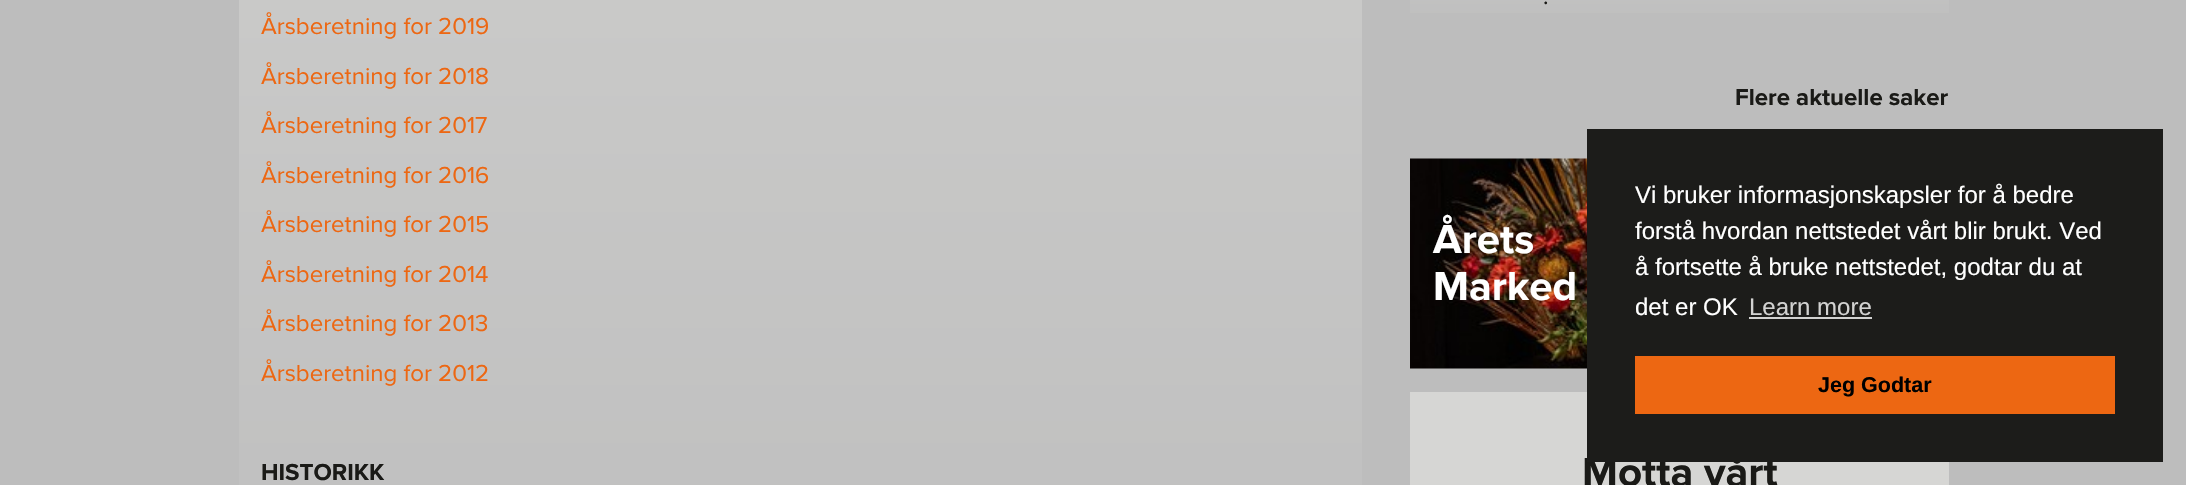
#include "include/core/SkBlurTypes.h"
#include "include/core/SkCanvas.h"
#include "include/core/SkData.h"
#include "include/core/SkFont.h"
#include "include/core/SkFontMgr.h"
#include "include/core/SkImage.h"
#include "include/core/SkMaskFilter.h"
#include "include/core/SkPaint.h"
#include "include/core/SkPathBuilder.h"
#include "include/core/SkTextBlob.h"
#include "include/effects/SkDashPathEffect.h"
#include "include/effects/SkGradientShader.h"
#include "include/utils/SkParsePath.h"

extern sk_sp<SkFontMgr> fontMgr;

void draw(SkCanvas* canvas) {
  SkPaint p;
  p.setAntiAlias(true);
  canvas->clear(SkColorSetRGB(189, 189, 189));
  {
    const SkColor colors[] = {SkColorSetRGB(214, 214, 212), SkColorSetRGB(189, 189, 189)};
    const float stops[] = {0, 1};
    const SkPoint ends[] = {{800, -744}, {800, 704}};
    p.setShader(SkGradientShader::MakeLinear(ends, colors, stops, 2, SkTileMode::kClamp));
    p.setAlpha(255);
  }
  canvas->drawRect(SkRect::MakeLTRB(239, 0, 1362, 485), p);
  {
    const SkColor colors[] = {SkColorSetRGB(214, 214, 212), SkColorSetRGB(189, 189, 189)};
    const float stops[] = {0, 1};
    const SkPoint ends[] = {{1679, -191}, {1679, 36}};
    p.setShader(SkGradientShader::MakeLinear(ends, colors, stops, 2, SkTileMode::kClamp));
    p.setAlpha(255);
  }
  canvas->drawRect(SkRect::MakeLTRB(1410, 0, 1949, 13), p);
  canvas->drawImageRect(SkImages::DeferredFromEncodedData(SkData::MakeFromFileName("images/1.png")), SkRect::MakeLTRB(1410, 158, 1587, 369), SkSamplingOptions());
  p.setShader(nullptr);
  p.setColor(SkColorSetRGB(214, 214, 212));
  canvas->drawRect(SkRect::MakeLTRB(1410, 392, 1949, 485), p);
  SkFont font1(fontMgr->matchFamilyStyle("Proxima Nova", SkFontStyle::Normal()), 24);
  font1.setSubpixel(true);
  p.setColor(SkColorSetRGB(237, 103, 18));
  canvas->drawString("Årsberetning for 2019", 261, 34, font1, p);
  canvas->drawString("Årsberetning for 2018", 261, 84, font1, p);
  canvas->drawString("Årsberetning for 2017", 261, 133, font1, p);
  canvas->drawString("Årsberetning for 2016", 261, 183, font1, p);
  canvas->drawString("Årsberetning for 2015", 261, 232, font1, p);
  canvas->drawString("Årsberetning for 2014", 261, 282, font1, p);
  canvas->drawString("Årsberetning for 2013", 261, 331, font1, p);
  canvas->drawString("Årsberetning for 2012", 261, 381, font1, p);
  SkFont font2(fontMgr->matchFamilyStyle("Proxima Nova", SkFontStyle::Bold()), 24);
  font2.setSubpixel(true);
  p.setColor(SkColorSetRGB(26, 26, 23));
  canvas->drawString("HISTORIKK", 261, 480, font2, p);
  canvas->drawString(".", 1543, 4, font1, p);
  canvas->drawString("Flere aktuelle saker", 1735, 105, font2, p);
  SkFont font3(fontMgr->matchFamilyStyle("Proxima Nova", SkFontStyle::Bold()), 42);
  font3.setSubpixel(true);
  p.setColor(SK_ColorWHITE);
  canvas->drawString("Årets", 1433, 253, font3, p);
  canvas->drawString("Marked", 1433, 300, font3, p);
  p.setColor(SkColorSetRGB(26, 26, 23));
  canvas->drawString("Motta vårt", 1582, 486, font3, p);
  p.setColor(SkColorSetRGB(28, 28, 26));
  canvas->drawRect(SkRect::MakeLTRB(1587, 129, 2163, 462), p);
  SkFont font4(fontMgr->matchFamilyStyle("Liberation Sans", SkFontStyle::Normal()), 24);
  font4.setSubpixel(true);
  p.setColor(SK_ColorWHITE);
  canvas->drawString("Vi bruker informasjonskapsler for å bedre", 1635, 203, font4, p);
  canvas->drawString("forstå hvordan nettstedet vårt blir brukt. Ved", 1635, 239, font4, p);
  canvas->drawString("å fortsette å bruke nettstedet, godtar du at", 1635, 275, font4, p);
  canvas->drawString("det er OK", 1635, 315, font4, p);
  p.setColor(SkColorSetRGB(210, 210, 209));
  canvas->drawString("Learn more", 1749, 315, font4, p);
  canvas->drawRect(SkRect::MakeLTRB(1749, 317, 1872, 319), p);
  p.setColor(SkColorSetRGB(237, 103, 18));
  canvas->drawRect(SkRect::MakeLTRB(1635, 356, 2115, 414), p);
  SkFont font5(fontMgr->matchFamilyStyle("Liberation Sans", SkFontStyle::Bold()), 21.5f);
  font5.setSubpixel(true);
  p.setColor(SK_ColorBLACK);
  canvas->drawString("Jeg Godtar", 1818, 392, font5, p);
}
